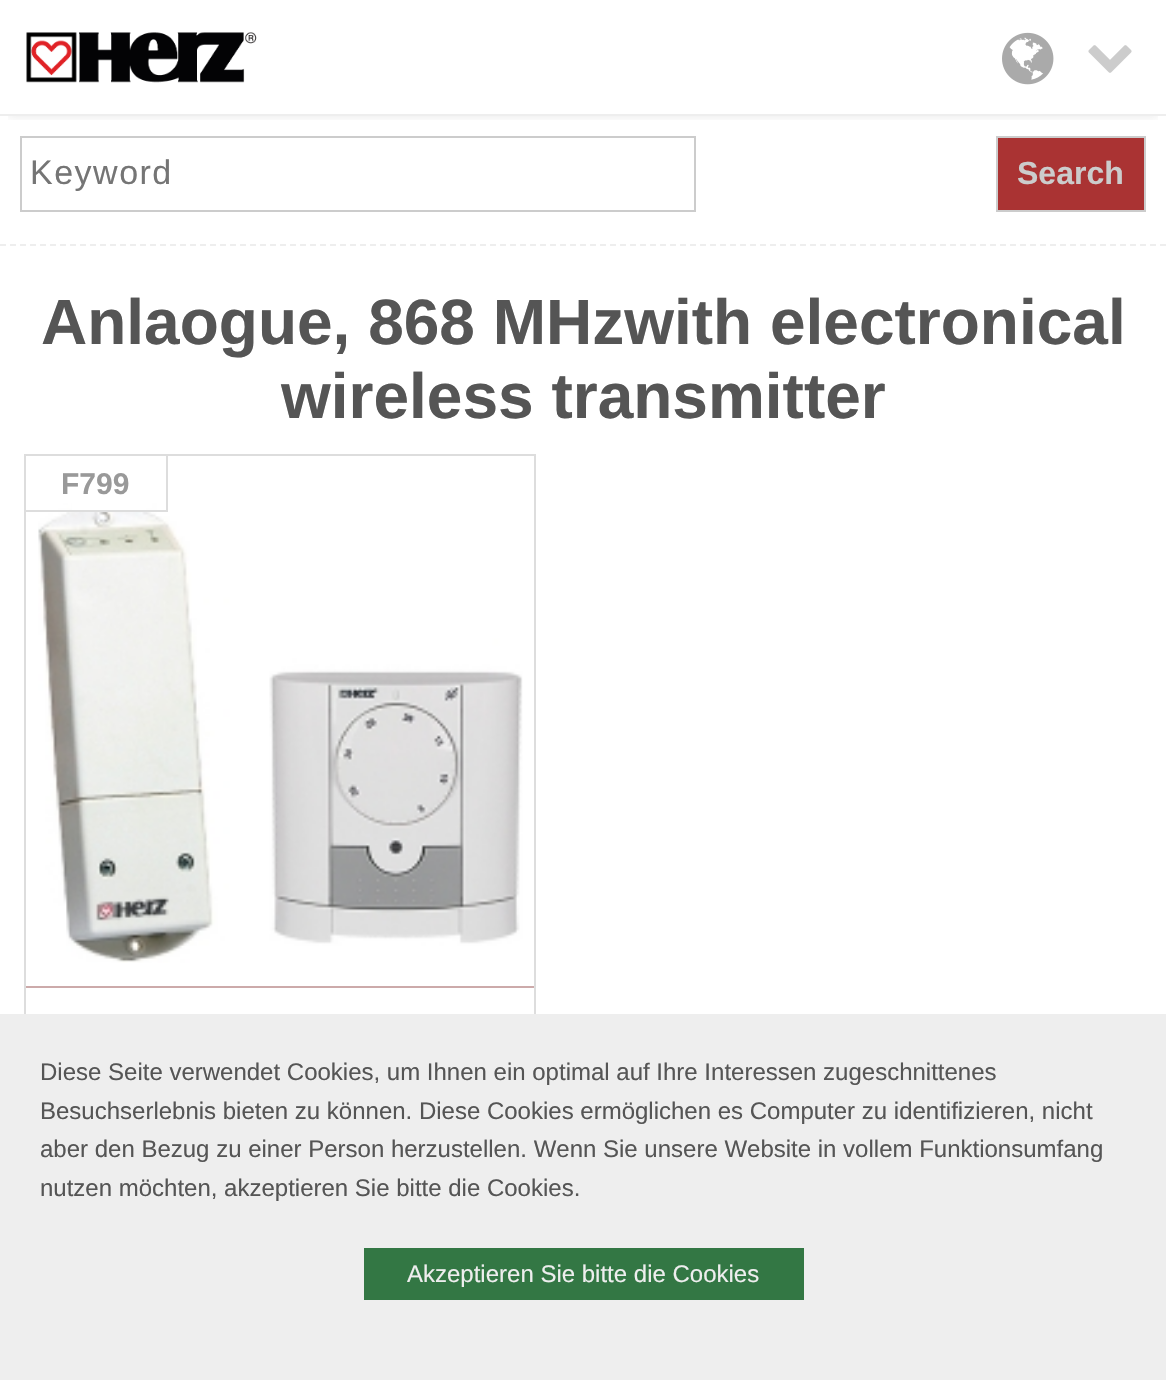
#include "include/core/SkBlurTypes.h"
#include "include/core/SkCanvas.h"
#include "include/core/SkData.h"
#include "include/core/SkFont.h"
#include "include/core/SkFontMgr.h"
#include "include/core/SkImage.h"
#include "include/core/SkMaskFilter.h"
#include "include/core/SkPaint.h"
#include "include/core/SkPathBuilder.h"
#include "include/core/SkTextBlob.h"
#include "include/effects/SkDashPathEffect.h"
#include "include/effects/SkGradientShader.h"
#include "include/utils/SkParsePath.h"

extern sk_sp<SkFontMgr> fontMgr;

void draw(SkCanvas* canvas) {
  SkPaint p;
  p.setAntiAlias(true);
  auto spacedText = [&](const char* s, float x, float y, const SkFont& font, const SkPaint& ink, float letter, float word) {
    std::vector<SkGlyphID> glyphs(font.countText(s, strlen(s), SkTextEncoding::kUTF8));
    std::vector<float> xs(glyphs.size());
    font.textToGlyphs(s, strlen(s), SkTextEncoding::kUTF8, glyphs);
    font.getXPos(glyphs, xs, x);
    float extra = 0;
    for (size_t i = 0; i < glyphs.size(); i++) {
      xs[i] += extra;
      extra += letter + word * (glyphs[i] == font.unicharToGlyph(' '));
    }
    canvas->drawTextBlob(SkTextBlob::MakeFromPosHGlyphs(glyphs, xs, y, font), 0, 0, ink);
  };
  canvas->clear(SK_ColorWHITE);
  canvas->save();
  canvas->clipRect(SkRect::MakeLTRB(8, 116, 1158, 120));
  p.setColor(SkColorSetARGB(23, 0, 0, 0));
  p.setMaskFilter(SkMaskFilter::MakeBlur(kNormal_SkBlurStyle, 5));
  canvas->drawRect(SkRect::MakeLTRB(8, 16, 1158, 116), p);
  p.setMaskFilter(nullptr);
  canvas->restore();
  p.setColor(SkColorSetRGB(238, 238, 238));
  canvas->drawRect(SkRect::MakeLTRB(0, 114, 1166, 116), p);
  canvas->drawImageRect(SkImages::DeferredFromEncodedData(SkData::MakeFromFileName("images/1.png")), SkRect::MakeLTRB(26, 32, 257, 83), SkSamplingOptions());
  canvas->drawImageRect(SkImages::DeferredFromEncodedData(SkData::MakeFromFileName("images/2.png")), SkRect::MakeLTRB(1002, 32, 1054, 85), SkSamplingOptions());
  canvas->drawImageRect(SkImages::DeferredFromEncodedData(SkData::MakeFromFileName("images/3.png")), SkRect::MakeLTRB(1088, 45, 1132, 73), SkSamplingOptions());
  p.setStyle(SkPaint::kStroke_Style);
  p.setStrokeWidth(2);
  p.setPathEffect(SkDashPathEffect::Make({{6, 4}}, 0));
  canvas->drawPath(SkPathBuilder().moveTo(0, 245).lineTo(1166, 245).detach(), p);
  p.setPathEffect(nullptr);
  p.setColor(SkColorSetRGB(204, 204, 204));
  canvas->drawRect(SkRect::MakeLTRB(21, 137, 695, 211), p);
  p.setStyle(SkPaint::kFill_Style);
  p.setColor(SkColorSetRGB(170, 51, 51));
  canvas->drawRect(SkRect::MakeLTRB(997, 137, 1145, 211), p);
  p.setStyle(SkPaint::kStroke_Style);
  p.setColor(SkColorSetRGB(204, 204, 204));
  canvas->drawRect(SkRect::MakeLTRB(997, 137, 1145, 211), p);
  p.setColor(SkColorSetRGB(221, 221, 221));
  canvas->drawRect(SkRect::MakeLTRB(25, 455, 535, 1069), p);
  canvas->drawImageRect(SkImages::DeferredFromEncodedData(SkData::MakeFromFileName("images/4.png")), SkRect::MakeLTRB(38, 503, 523, 963), SkSamplingOptions());
  p.setStyle(SkPaint::kFill_Style);
  p.setColor(SK_ColorWHITE);
  canvas->drawRect(SkRect::MakeLTRB(72, 503, 146, 510), p);
  p.setColor(SkColorSetRGB(221, 221, 221));
  canvas->drawRect(SkRect::MakeLTRB(166, 456, 168, 512), p);
  canvas->drawRect(SkRect::MakeLTRB(26, 510, 168, 512), p);
  p.setColor(SkColorSetRGB(204, 170, 170));
  canvas->drawRect(SkRect::MakeLTRB(26, 986, 534, 988), p);
  p.setColor(SkColorSetRGB(238, 238, 238));
  canvas->drawRect(SkRect::MakeLTRB(0, 1014, 1166, 1380), p);
  p.setColor(SkColorSetRGB(51, 119, 68));
  canvas->drawRect(SkRect::MakeLTRB(364, 1248, 804, 1300), p);
  SkFont font1(fontMgr->matchFamilyStyle("Liberation Sans", SkFontStyle::Normal()), 34);
  font1.setSubpixel(true);
  p.setColor(SkColorSetRGB(117, 117, 117));
  spacedText("Keyword", 30, 184, font1, p, 1.5f, 0);
  SkFont font2(fontMgr->matchFamilyStyle("Liberation Sans", SkFontStyle::Bold()), 32);
  font2.setSubpixel(true);
  p.setColor(SkColorSetRGB(204, 204, 204));
  canvas->drawString("Search", 1017, 184, font2, p);
  SkFont font3(fontMgr->matchFamilyStyle("Liberation Sans", SkFontStyle::Bold()), 64);
  font3.setSubpixel(true);
  p.setColor(SkColorSetRGB(85, 85, 85));
  canvas->drawString("Anlaogue, 868 MHzwith electronical", 41, 344, font3, p);
  canvas->drawString("wireless transmitter", 281, 418, font3, p);
  SkFont font4(fontMgr->matchFamilyStyle("Liberation Sans", SkFontStyle::Bold()), 30);
  font4.setSubpixel(true);
  p.setColor(SkColorSetRGB(153, 153, 153));
  canvas->drawString("F799", 61, 494, font4, p);
  SkFont font5(fontMgr->matchFamilyStyle("Liberation Sans", SkFontStyle::Normal()), 24);
  font5.setSubpixel(true);
  p.setColor(SkColorSetRGB(85, 85, 85));
  canvas->drawString("Diese Seite verwendet Cookies, um Ihnen ein optimal auf Ihre Interessen zugeschnittenes", 40, 1080, font5, p);
  canvas->drawString("Besuchserlebnis bieten zu können. Diese Cookies ermöglichen es Computer zu identifizieren, nicht", 40, 1119, font5, p);
  canvas->drawString("aber den Bezug zu einer Person herzustellen. Wenn Sie unsere Website in vollem Funktionsumfang", 40, 1157, font5, p);
  canvas->drawString("nutzen möchten, akzeptieren Sie bitte die Cookies.", 40, 1196, font5, p);
  p.setColor(SkColorSetRGB(238, 238, 238));
  canvas->drawString("Akzeptieren Sie bitte die Cookies", 407, 1282, font5, p);
}
